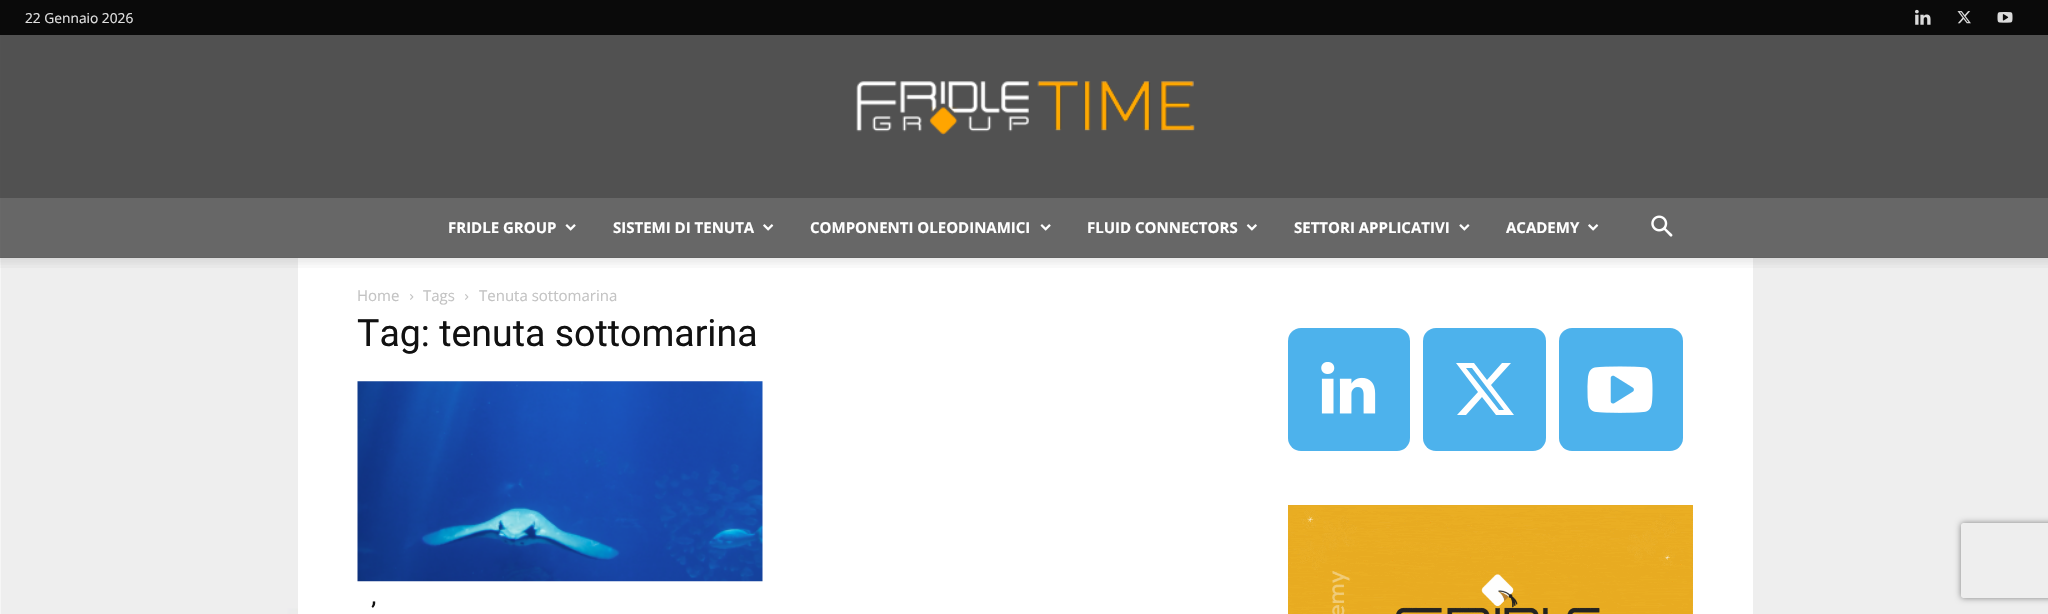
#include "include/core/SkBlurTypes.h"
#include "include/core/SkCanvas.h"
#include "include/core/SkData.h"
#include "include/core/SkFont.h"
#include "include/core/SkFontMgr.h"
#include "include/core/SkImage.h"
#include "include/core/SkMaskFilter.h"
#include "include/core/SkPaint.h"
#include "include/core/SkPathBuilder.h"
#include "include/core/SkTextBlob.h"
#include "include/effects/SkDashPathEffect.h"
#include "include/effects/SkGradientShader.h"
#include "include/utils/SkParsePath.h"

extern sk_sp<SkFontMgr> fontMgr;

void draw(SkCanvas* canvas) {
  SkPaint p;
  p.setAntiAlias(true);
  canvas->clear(SK_ColorWHITE);
  p.setColor(SkColorSetRGB(10, 10, 10));
  canvas->drawRect(SkRect::MakeLTRB(0, 0, 2048, 35), p);
  canvas->drawImageRect(SkImages::DeferredFromEncodedData(SkData::MakeFromFileName("images/1.png")), SkRect::MakeLTRB(1915, 9, 1931, 25), SkSamplingOptions());
  canvas->drawImageRect(SkImages::DeferredFromEncodedData(SkData::MakeFromFileName("images/2.png")), SkRect::MakeLTRB(1957, 11, 1971, 24), SkSamplingOptions());
  canvas->drawImageRect(SkImages::DeferredFromEncodedData(SkData::MakeFromFileName("images/3.png")), SkRect::MakeLTRB(1997, 12, 2013, 23), SkSamplingOptions());
  canvas->drawImageRect(SkImages::DeferredFromEncodedData(SkData::MakeFromFileName("images/16.png")), SkRect::MakeLTRB(0, 35, 2048, 614), SkSamplingOptions());
  p.setColor(SkColorSetARGB(222, 57, 57, 57));
  canvas->drawRect(SkRect::MakeLTRB(0, 35, 2048, 198), p);
  canvas->drawImageRect(SkImages::DeferredFromEncodedData(SkData::MakeFromFileName("images/4.png")), SkRect::MakeLTRB(856, 81, 1195, 135), SkSamplingOptions());
  p.setColor(SkColorSetARGB(191, 57, 57, 57));
  canvas->drawRect(SkRect::MakeLTRB(0, 198, 2048, 258), p);
  canvas->drawImageRect(SkImages::DeferredFromEncodedData(SkData::MakeFromFileName("images/5.png")), SkRect::MakeLTRB(565, 224, 576, 231), SkSamplingOptions());
  canvas->drawImageRect(SkImages::DeferredFromEncodedData(SkData::MakeFromFileName("images/6.png")), SkRect::MakeLTRB(763, 224, 774, 231), SkSamplingOptions());
  canvas->drawImageRect(SkImages::DeferredFromEncodedData(SkData::MakeFromFileName("images/5.png")), SkRect::MakeLTRB(1040, 224, 1051, 231), SkSamplingOptions());
  canvas->drawImageRect(SkImages::DeferredFromEncodedData(SkData::MakeFromFileName("images/7.png")), SkRect::MakeLTRB(1246, 224, 1257, 231), SkSamplingOptions());
  canvas->drawImageRect(SkImages::DeferredFromEncodedData(SkData::MakeFromFileName("images/8.png")), SkRect::MakeLTRB(1459, 224, 1470, 231), SkSamplingOptions());
  canvas->drawImageRect(SkImages::DeferredFromEncodedData(SkData::MakeFromFileName("images/6.png")), SkRect::MakeLTRB(1588, 224, 1599, 231), SkSamplingOptions());
  canvas->drawImageRect(SkImages::DeferredFromEncodedData(SkData::MakeFromFileName("images/9.png")), SkRect::MakeLTRB(1651, 215, 1673, 237), SkSamplingOptions());
  p.setColor(SK_ColorWHITE);
  canvas->drawRect(SkRect::MakeLTRB(298, 258, 1753, 614), p);
  canvas->drawImageRect(SkImages::DeferredFromEncodedData(SkData::MakeFromFileName("images/10.png")), SkRect::MakeLTRB(0, 257, 2048, 268), SkSamplingOptions());
  canvas->drawImageRect(SkImages::DeferredFromEncodedData(SkData::MakeFromFileName("images/11.png")), SkRect::MakeLTRB(410, 294, 414, 300), SkSamplingOptions());
  canvas->drawImageRect(SkImages::DeferredFromEncodedData(SkData::MakeFromFileName("images/11.png")), SkRect::MakeLTRB(465, 294, 469, 300), SkSamplingOptions());
  canvas->drawImageRect(SkImages::DeferredFromEncodedData(SkData::MakeFromFileName("images/12.png")), SkRect::MakeLTRB(357, 381, 763, 582), SkSamplingOptions());
  p.setColor(SkColorSetRGB(77, 178, 236));
  canvas->drawRoundRect(SkRect::MakeLTRB(1288, 328, 1410, 451), 13, 13, p);
  canvas->drawImageRect(SkImages::DeferredFromEncodedData(SkData::MakeFromFileName("images/13.png")), SkRect::MakeLTRB(1321, 362, 1376, 414), SkSamplingOptions());
  canvas->drawRoundRect(SkRect::MakeLTRB(1423, 328, 1546, 451), 13, 13, p);
  p.setColor(SK_ColorWHITE);
  canvas->drawPath(SkPathBuilder().moveTo(1502, 363).lineTo(1511, 363).lineTo(1491, 385).lineTo(1514, 415).lineTo(1496, 415).lineTo(1482, 397).lineTo(1466, 415).lineTo(1457, 415).lineTo(1478, 392).lineTo(1456, 363).lineTo(1474, 363).lineTo(1487, 380).close().moveTo(1499, 410).lineTo(1504, 410).lineTo(1472, 368).lineTo(1466, 368).close().detach(), p);
  p.setColor(SkColorSetRGB(77, 178, 236));
  canvas->drawRoundRect(SkRect::MakeLTRB(1559, 328, 1683, 451), 13, 13, p);
  canvas->drawImageRect(SkImages::DeferredFromEncodedData(SkData::MakeFromFileName("images/14.png")), SkRect::MakeLTRB(1587, 366, 1653, 413), SkSamplingOptions());
  canvas->drawImageRect(SkImages::DeferredFromEncodedData(SkData::MakeFromFileName("images/15.png")), SkRect::MakeLTRB(1288, 505, 1693, 614), SkSamplingOptions());
  canvas->save();
  canvas->clipPath(SkPathBuilder(SkPathFillType::kEvenOdd).moveTo(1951, 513).lineTo(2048, 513).lineTo(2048, 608).lineTo(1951, 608).close().moveTo(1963.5f, 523).lineTo(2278.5f, 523).cubicTo(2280, 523, 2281, 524, 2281, 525.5f).lineTo(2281, 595.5f).cubicTo(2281, 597, 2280, 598, 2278.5f, 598).lineTo(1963.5f, 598).cubicTo(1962, 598, 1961, 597, 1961, 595.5f).lineTo(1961, 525.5f).cubicTo(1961, 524, 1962, 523, 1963.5f, 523).close().detach(), true);
  p.setColor(SkColorSetRGB(128, 128, 128));
  p.setMaskFilter(SkMaskFilter::MakeBlur(kNormal_SkBlurStyle, 3));
  canvas->drawRoundRect(SkRect::MakeLTRB(1961, 523, 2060, 598), 2.5f, 2.5f, p);
  p.setMaskFilter(nullptr);
  canvas->restore();
  SkFont font1(fontMgr->matchFamilyStyle("Open Sans", SkFontStyle::Normal()), 13.75f);
  font1.setSubpixel(true);
  p.setColor(SkColorSetRGB(224, 224, 224));
  canvas->drawString("22 Gennaio 2026", 25, 23, font1, p);
  SkFont font2(fontMgr->matchFamilyStyle("Open Sans", SkFontStyle::Bold()), 15);
  font2.setSubpixel(true);
  p.setColor(SK_ColorWHITE);
  canvas->drawString("FRIDLE GROUP", 448, 233, font2, p);
  canvas->drawString("SISTEMI DI TENUTA", 613, 233, font2, p);
  canvas->drawString("COMPONENTI OLEODINAMICI", 810, 233, font2, p);
  canvas->drawString("FLUID CONNECTORS", 1087, 233, font2, p);
  canvas->drawString("SETTORI APPLICATIVI", 1294, 233, font2, p);
  canvas->drawString("ACADEMY", 1506, 233, font2, p);
  SkFont font3(fontMgr->matchFamilyStyle("Open Sans", SkFontStyle::Normal()), 15);
  font3.setSubpixel(true);
  p.setColor(SkColorSetRGB(195, 195, 195));
  canvas->drawString("Home", 357, 301, font3, p);
  canvas->drawString("Tags", 423, 301, font3, p);
  canvas->drawString("Tenuta sottomarina", 479, 301, font3, p);
  SkFont font4(fontMgr->matchFamilyStyle("Roboto", SkFontStyle::Normal()), 37.5f);
  font4.setSubpixel(true);
  p.setColor(SkColorSetRGB(17, 17, 17));
  canvas->drawString("Tag: tenuta sottomarina", 357, 346, font4, p);
  SkFont font5(fontMgr->matchFamilyStyle("Roboto", SkFontStyle::Normal()), 26);
  font5.setSubpixel(true);
  canvas->drawString("’", 371, 621, font5, p);
}
